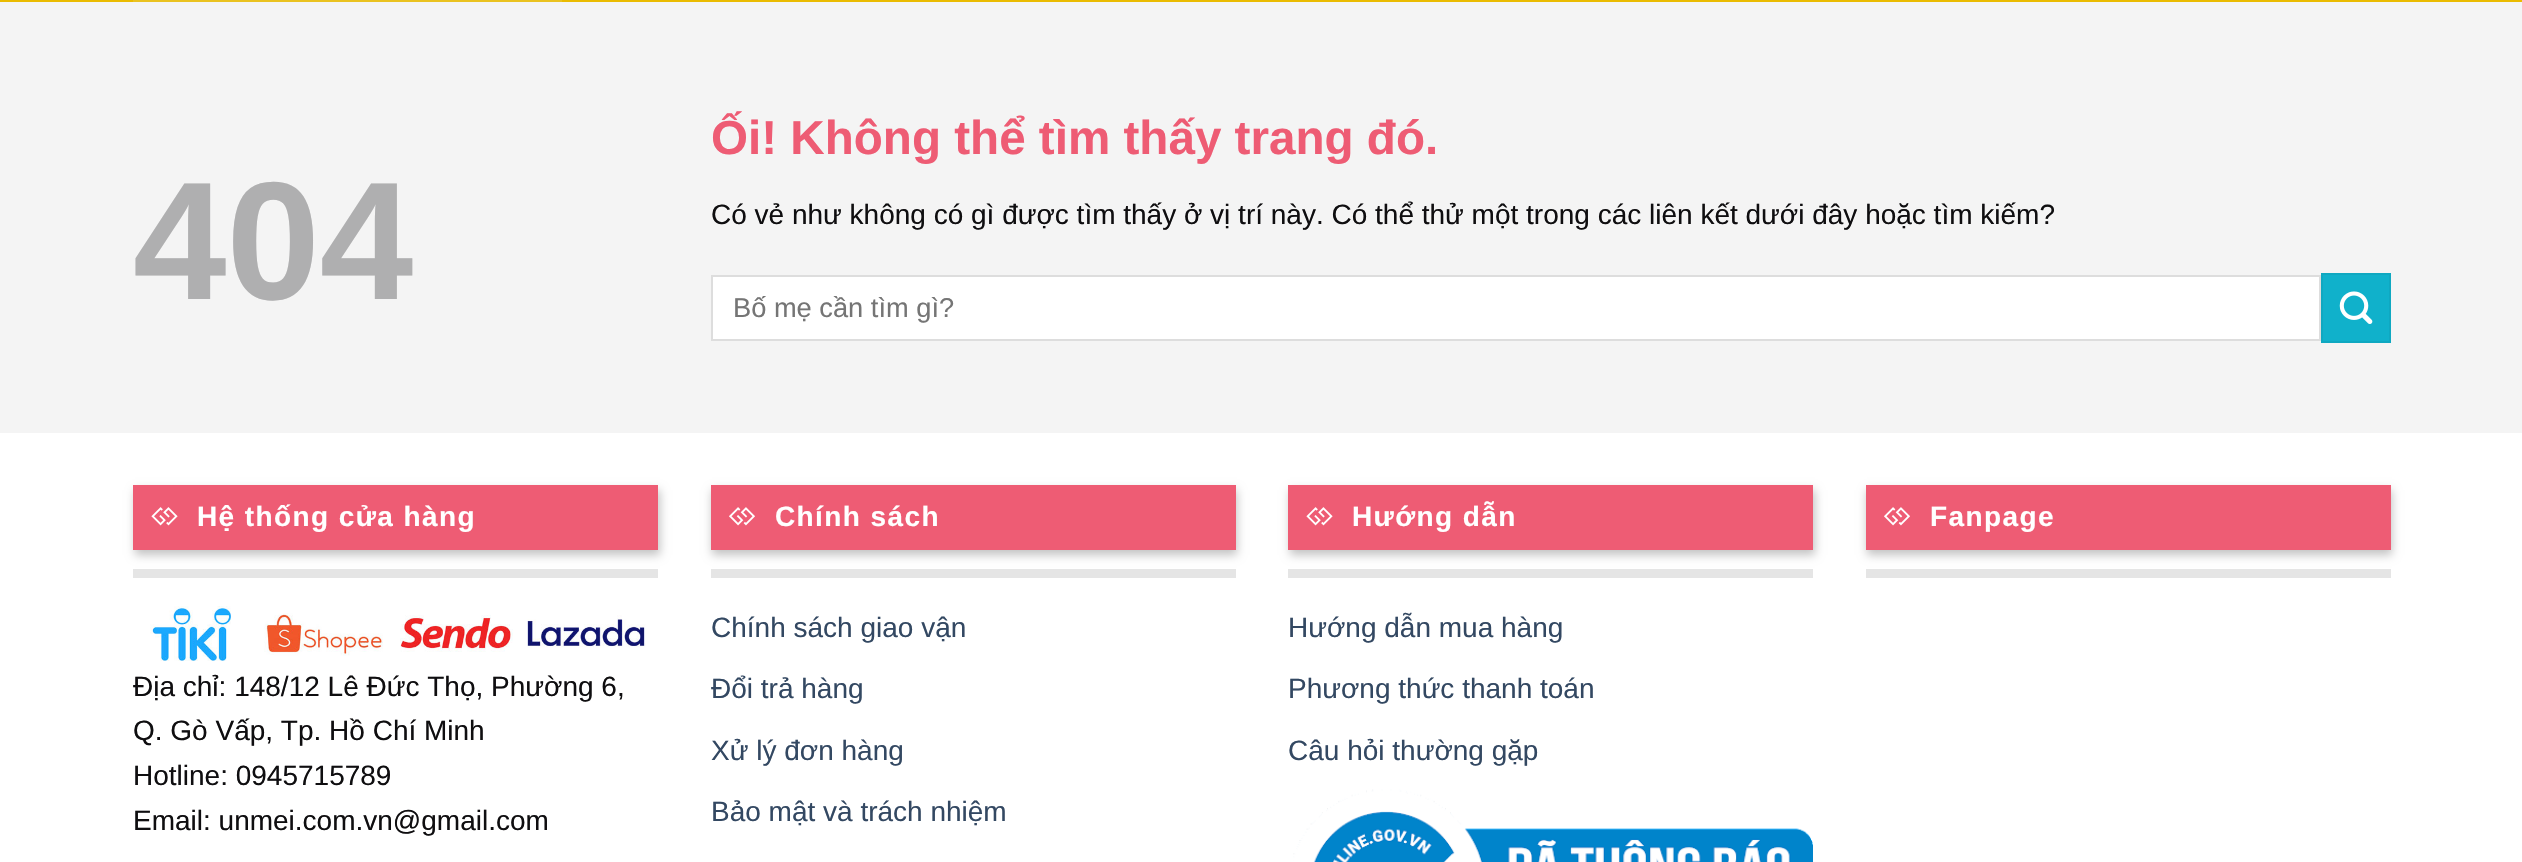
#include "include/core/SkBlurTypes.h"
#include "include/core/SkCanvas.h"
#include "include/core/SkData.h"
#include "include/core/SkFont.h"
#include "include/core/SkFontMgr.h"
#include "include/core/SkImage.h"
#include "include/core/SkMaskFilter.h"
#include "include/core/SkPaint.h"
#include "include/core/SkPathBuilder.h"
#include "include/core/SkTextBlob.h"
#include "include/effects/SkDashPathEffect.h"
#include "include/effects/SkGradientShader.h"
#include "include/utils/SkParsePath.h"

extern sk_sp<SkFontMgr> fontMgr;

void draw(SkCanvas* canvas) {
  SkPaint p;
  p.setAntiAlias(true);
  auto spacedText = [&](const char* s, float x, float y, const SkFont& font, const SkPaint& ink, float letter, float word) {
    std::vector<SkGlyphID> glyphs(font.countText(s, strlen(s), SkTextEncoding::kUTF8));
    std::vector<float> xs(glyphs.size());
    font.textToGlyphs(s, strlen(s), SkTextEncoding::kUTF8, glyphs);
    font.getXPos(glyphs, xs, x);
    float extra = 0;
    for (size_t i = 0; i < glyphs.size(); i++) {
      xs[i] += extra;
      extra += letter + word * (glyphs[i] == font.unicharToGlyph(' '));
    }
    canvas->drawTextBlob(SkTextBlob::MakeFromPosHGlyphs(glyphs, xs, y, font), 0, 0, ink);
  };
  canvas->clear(SkColorSetRGB(244, 244, 244));
  p.setColor(SkColorSetRGB(234, 187, 0));
  canvas->drawRect(SkRect::MakeLTRB(0, 0, 2522, 2), p);
  p.setColor(SkColorSetRGB(234, 194, 32));
  canvas->drawRect(SkRect::MakeLTRB(133, 0, 562, 2), p);
  p.setColor(SK_ColorWHITE);
  canvas->drawRect(SkRect::MakeLTRB(712, 276, 2320, 340), p);
  p.setStyle(SkPaint::kStroke_Style);
  p.setStrokeWidth(2);
  p.setColor(SkColorSetRGB(221, 221, 221));
  canvas->drawRect(SkRect::MakeLTRB(712, 276, 2320, 340), p);
  p.setStyle(SkPaint::kFill_Style);
  p.setColor(SkColorSetRGB(16, 177, 203));
  canvas->drawRect(SkRect::MakeLTRB(2322, 274, 2390, 342), p);
  p.setStyle(SkPaint::kStroke_Style);
  p.setColor(SkColorSetRGB(15, 168, 193));
  canvas->drawRect(SkRect::MakeLTRB(2322, 274, 2390, 342), p);
  canvas->drawImageRect(SkImages::DeferredFromEncodedData(SkData::MakeFromFileName("images/1.png")), SkRect::MakeLTRB(2339, 291, 2373, 324), SkSamplingOptions());
  p.setStyle(SkPaint::kFill_Style);
  p.setColor(SK_ColorWHITE);
  canvas->drawRect(SkRect::MakeLTRB(0, 433, 2522, 862), p);
  p.setColor(SkColorSetARGB(61, 0, 0, 0));
  p.setMaskFilter(SkMaskFilter::MakeBlur(kNormal_SkBlurStyle, 4.5f));
  canvas->drawRect(SkRect::MakeLTRB(135, 490, 660, 555), p);
  p.setMaskFilter(nullptr);
  p.setColor(SkColorSetRGB(238, 92, 116));
  canvas->drawRect(SkRect::MakeLTRB(133, 485, 658, 550), p);
  canvas->drawImageRect(SkImages::DeferredFromEncodedData(SkData::MakeFromFileName("images/2.png")), SkRect::MakeLTRB(151, 507, 178, 526), SkSamplingOptions());
  p.setColor(SkColorSetRGB(229, 229, 229));
  canvas->drawRect(SkRect::MakeLTRB(133, 569, 658, 578), p);
  canvas->drawImageRect(SkImages::DeferredFromEncodedData(SkData::MakeFromFileName("images/3.png")), SkRect::MakeLTRB(150, 606, 231, 661), SkSamplingOptions());
  canvas->drawImageRect(SkImages::DeferredFromEncodedData(SkData::MakeFromFileName("images/4.png")), SkRect::MakeLTRB(264, 613, 383, 656), SkSamplingOptions());
  canvas->drawImageRect(SkImages::DeferredFromEncodedData(SkData::MakeFromFileName("images/5.png")), SkRect::MakeLTRB(400, 615, 513, 652), SkSamplingOptions());
  canvas->drawImageRect(SkImages::DeferredFromEncodedData(SkData::MakeFromFileName("images/6.png")), SkRect::MakeLTRB(527, 615, 646, 648), SkSamplingOptions());
  p.setColor(SkColorSetARGB(61, 0, 0, 0));
  p.setMaskFilter(SkMaskFilter::MakeBlur(kNormal_SkBlurStyle, 4.5f));
  canvas->drawRect(SkRect::MakeLTRB(712, 490, 1237, 555), p);
  p.setMaskFilter(nullptr);
  p.setColor(SkColorSetRGB(238, 92, 116));
  canvas->drawRect(SkRect::MakeLTRB(711, 485, 1236, 550), p);
  canvas->drawImageRect(SkImages::DeferredFromEncodedData(SkData::MakeFromFileName("images/7.png")), SkRect::MakeLTRB(729, 507, 755, 526), SkSamplingOptions());
  p.setColor(SkColorSetRGB(229, 229, 229));
  canvas->drawRect(SkRect::MakeLTRB(711, 569, 1236, 578), p);
  p.setColor(SkColorSetARGB(61, 0, 0, 0));
  p.setMaskFilter(SkMaskFilter::MakeBlur(kNormal_SkBlurStyle, 4.5f));
  canvas->drawRect(SkRect::MakeLTRB(1290, 490, 1815, 555), p);
  p.setMaskFilter(nullptr);
  p.setColor(SkColorSetRGB(238, 92, 116));
  canvas->drawRect(SkRect::MakeLTRB(1288, 485, 1813, 550), p);
  canvas->drawImageRect(SkImages::DeferredFromEncodedData(SkData::MakeFromFileName("images/2.png")), SkRect::MakeLTRB(1306, 507, 1333, 526), SkSamplingOptions());
  p.setColor(SkColorSetRGB(229, 229, 229));
  canvas->drawRect(SkRect::MakeLTRB(1288, 569, 1813, 578), p);
  canvas->drawImageRect(SkImages::DeferredFromEncodedData(SkData::MakeFromFileName("images/8.png")), SkRect::MakeLTRB(1293, 789, 1813, 862), SkSamplingOptions());
  p.setColor(SkColorSetARGB(61, 0, 0, 0));
  p.setMaskFilter(SkMaskFilter::MakeBlur(kNormal_SkBlurStyle, 4.5f));
  canvas->drawRect(SkRect::MakeLTRB(1867, 490, 2392, 555), p);
  p.setMaskFilter(nullptr);
  p.setColor(SkColorSetRGB(238, 92, 116));
  canvas->drawRect(SkRect::MakeLTRB(1866, 485, 2391, 550), p);
  canvas->drawImageRect(SkImages::DeferredFromEncodedData(SkData::MakeFromFileName("images/7.png")), SkRect::MakeLTRB(1884, 507, 1910, 526), SkSamplingOptions());
  p.setColor(SkColorSetRGB(229, 229, 229));
  canvas->drawRect(SkRect::MakeLTRB(1866, 569, 2391, 578), p);
  SkFont font1(fontMgr->matchFamilyStyle("Liberation Sans", SkFontStyle::Bold()), 168);
  font1.setSubpixel(true);
  p.setColor(SkColorSetRGB(175, 175, 176));
  canvas->drawString("404", 133, 299, font1, p);
  SkFont font2(fontMgr->matchFamilyStyle("Liberation Sans", SkFontStyle::Bold()), 47.6f);
  font2.setSubpixel(true);
  p.setColor(SkColorSetRGB(238, 92, 116));
  canvas->drawString("Ối! Không thể tìm thấy trang đó.", 711, 154, font2, p);
  SkFont font3(fontMgr->matchFamilyStyle("Liberation Sans", SkFontStyle::Normal()), 28);
  font3.setSubpixel(true);
  p.setColor(SkColorSetRGB(15, 14, 16));
  canvas->drawString("Có vẻ như không có gì được tìm thấy ở vị trí này. Có thể thử một trong các liên kết dưới đây hoặc tìm kiếm?", 711, 224, font3, p);
  SkFont font4(fontMgr->matchFamilyStyle("Liberation Sans", SkFontStyle::Normal()), 27.25f);
  font4.setSubpixel(true);
  p.setColor(SkColorSetRGB(117, 117, 117));
  canvas->drawString("Bố mẹ cần tìm gì?", 733, 317, font4, p);
  SkFont font5(fontMgr->matchFamilyStyle("Liberation Sans", SkFontStyle::Bold()), 28);
  font5.setSubpixel(true);
  p.setColor(SK_ColorWHITE);
  spacedText("Hệ thống cửa hàng", 197, 526, font5, p, 1.4f, 0);
  p.setColor(SkColorSetRGB(15, 14, 16));
  canvas->drawString("Địa chỉ: 148/12 Lê Đức Thọ, Phường 6,", 133, 696, font3, p);
  canvas->drawString("Q. Gò Vấp, Tp. Hồ Chí Minh", 133, 740, font3, p);
  canvas->drawString("Hotline: 0945715789", 133, 785, font3, p);
  canvas->drawString("Email: unmei.com.vn@gmail.com", 133, 830, font3, p);
  p.setColor(SK_ColorWHITE);
  spacedText("Chính sách", 775, 526, font5, p, 1.4f, 0);
  p.setColor(SkColorSetRGB(51, 72, 98));
  canvas->drawString("Chính sách giao vận", 711, 637, font3, p);
  canvas->drawString("Đổi trả hàng", 711, 698, font3, p);
  canvas->drawString("Xử lý đơn hàng", 711, 760, font3, p);
  canvas->drawString("Bảo mật và trách nhiệm", 711, 821, font3, p);
  p.setColor(SK_ColorWHITE);
  spacedText("Hướng dẫn", 1352, 526, font5, p, 1.4f, 0);
  p.setColor(SkColorSetRGB(51, 72, 98));
  canvas->drawString("Hướng dẫn mua hàng", 1288, 637, font3, p);
  canvas->drawString("Phương thức thanh toán", 1288, 698, font3, p);
  canvas->drawString("Câu hỏi thường gặp", 1288, 760, font3, p);
  p.setColor(SK_ColorWHITE);
  spacedText("Fanpage", 1930, 526, font5, p, 1.4f, 0);
}
